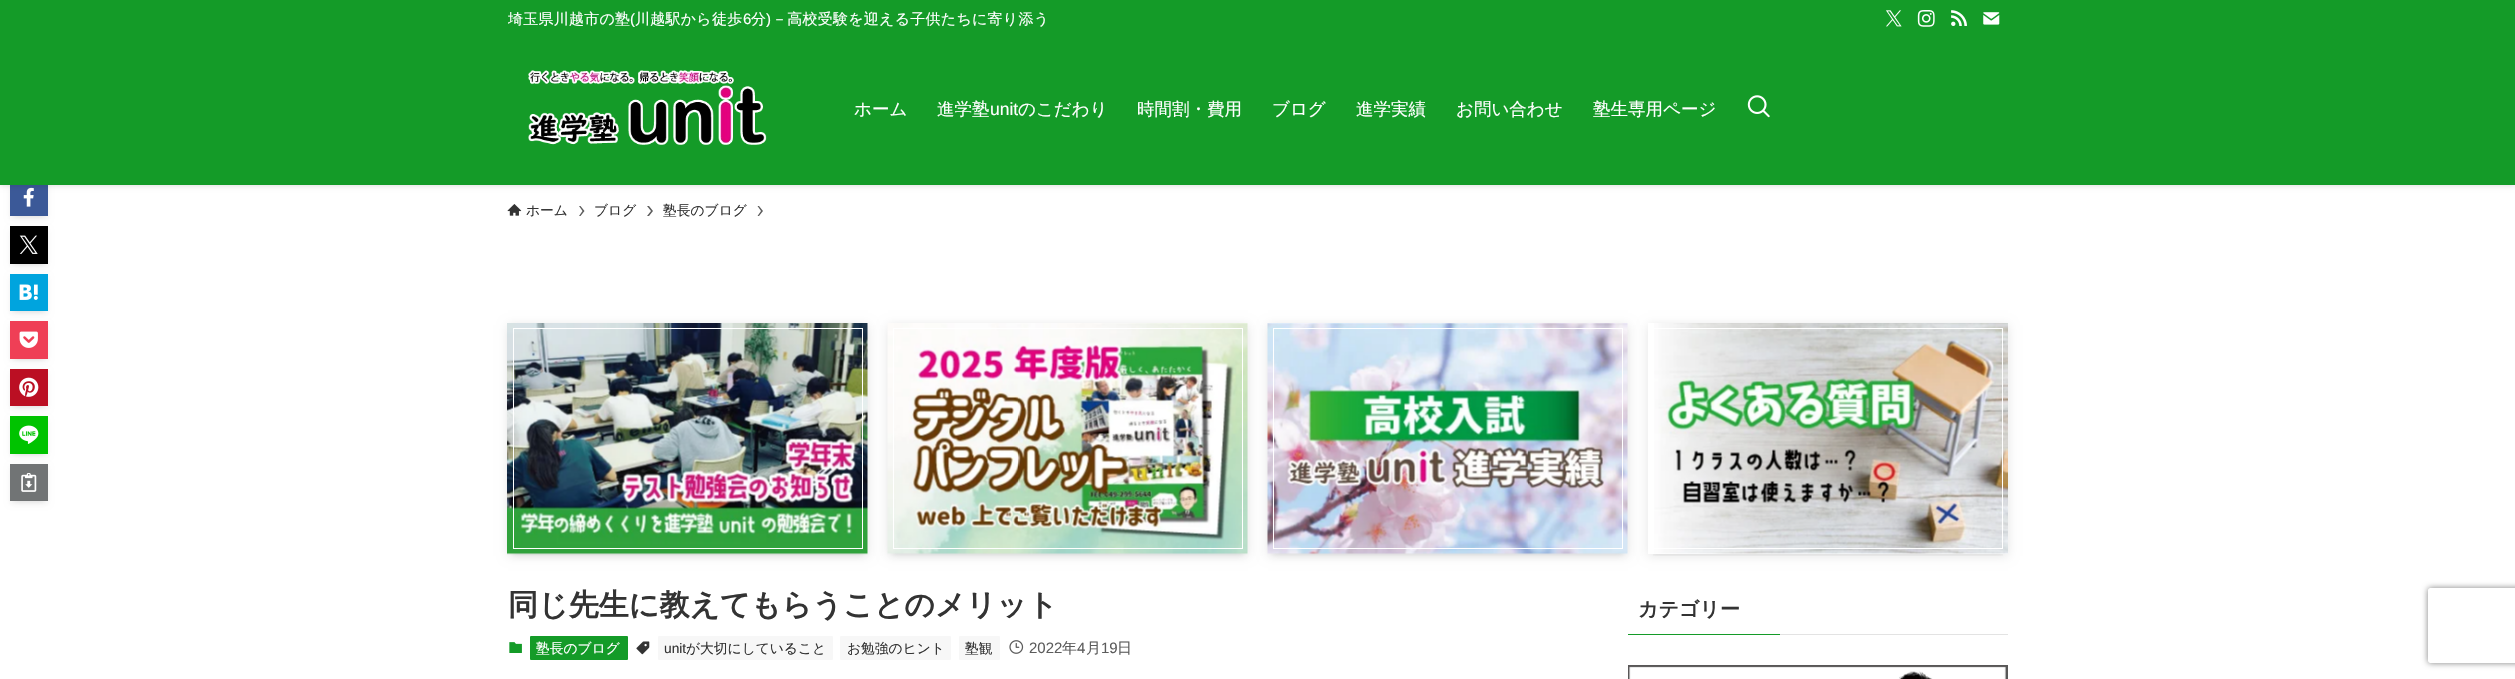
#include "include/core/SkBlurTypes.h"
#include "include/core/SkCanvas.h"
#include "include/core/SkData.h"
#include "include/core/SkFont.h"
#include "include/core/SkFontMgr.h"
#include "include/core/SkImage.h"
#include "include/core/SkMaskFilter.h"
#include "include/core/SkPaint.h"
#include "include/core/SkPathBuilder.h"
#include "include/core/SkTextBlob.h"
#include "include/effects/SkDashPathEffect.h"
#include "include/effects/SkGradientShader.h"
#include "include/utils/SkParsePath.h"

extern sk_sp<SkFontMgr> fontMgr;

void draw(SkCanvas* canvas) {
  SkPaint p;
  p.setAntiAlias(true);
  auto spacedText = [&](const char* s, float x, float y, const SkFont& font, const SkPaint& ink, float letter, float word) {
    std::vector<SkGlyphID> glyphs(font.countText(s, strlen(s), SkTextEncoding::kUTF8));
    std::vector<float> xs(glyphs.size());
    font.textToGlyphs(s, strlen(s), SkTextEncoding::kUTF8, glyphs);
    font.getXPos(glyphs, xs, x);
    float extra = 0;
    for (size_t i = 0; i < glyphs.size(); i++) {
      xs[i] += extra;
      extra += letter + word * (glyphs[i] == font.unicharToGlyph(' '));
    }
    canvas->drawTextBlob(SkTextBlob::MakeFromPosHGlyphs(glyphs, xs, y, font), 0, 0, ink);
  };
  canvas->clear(SK_ColorWHITE);
  p.setColor(SkColorSetARGB(26, 0, 0, 0));
  p.setMaskFilter(SkMaskFilter::MakeBlur(kNormal_SkBlurStyle, 2.5f));
  canvas->drawRect(SkRect::MakeLTRB(15, 189, 43, 216), p);
  p.setMaskFilter(nullptr);
  p.setColor(SkColorSetARGB(13, 0, 0, 0));
  p.setMaskFilter(SkMaskFilter::MakeBlur(kNormal_SkBlurStyle, 2.5f));
  canvas->drawRect(SkRect::MakeLTRB(10, 181, 48, 219), p);
  p.setMaskFilter(nullptr);
  p.setColor(SkColorSetRGB(59, 89, 152));
  canvas->drawRect(SkRect::MakeLTRB(10, 185, 48, 216), p);
  canvas->drawImageRect(SkImages::DeferredFromEncodedData(SkData::MakeFromFileName("images/12.png")), SkRect::MakeLTRB(23, 187, 34, 207), SkSamplingOptions());
  p.setColor(SkColorSetARGB(31, 0, 0, 0));
  p.setMaskFilter(SkMaskFilter::MakeBlur(kNormal_SkBlurStyle, 2.5f));
  canvas->drawRect(SkRect::MakeLTRB(0, 1, 2515, 186), p);
  p.setMaskFilter(nullptr);
  p.setColor(SkColorSetRGB(20, 155, 40));
  canvas->drawRect(SkRect::MakeLTRB(0, 0, 2515, 185), p);
  canvas->drawImageRect(SkImages::DeferredFromEncodedData(SkData::MakeFromFileName("images/1.png")), SkRect::MakeLTRB(1886, 10, 1902, 27), SkSamplingOptions());
  canvas->drawImageRect(SkImages::DeferredFromEncodedData(SkData::MakeFromFileName("images/2.png")), SkRect::MakeLTRB(1917, 10, 1935, 27), SkSamplingOptions());
  canvas->drawImageRect(SkImages::DeferredFromEncodedData(SkData::MakeFromFileName("images/3.png")), SkRect::MakeLTRB(1951, 10, 1967, 26), SkSamplingOptions());
  canvas->drawImageRect(SkImages::DeferredFromEncodedData(SkData::MakeFromFileName("images/4.png")), SkRect::MakeLTRB(1983, 12, 2000, 25), SkSamplingOptions());
  canvas->drawImageRect(SkImages::DeferredFromEncodedData(SkData::MakeFromFileName("images/5.png")), SkRect::MakeLTRB(528, 70, 767, 145), SkSamplingOptions());
  canvas->drawImageRect(SkImages::DeferredFromEncodedData(SkData::MakeFromFileName("images/6.png")), SkRect::MakeLTRB(1747, 95, 1770, 118), SkSamplingOptions());
  canvas->drawImageRect(SkImages::DeferredFromEncodedData(SkData::MakeFromFileName("images/7.png")), SkRect::MakeLTRB(507, 204, 522, 216), SkSamplingOptions());
  p.setColor(SkColorSetRGB(92, 92, 92));
  canvas->drawPath(SkPathBuilder().moveTo(580.5f, 206).lineTo(579, 206).lineTo(582.5f, 211).lineTo(579, 216).lineTo(580.5f, 216).lineTo(584.5f, 211).close().detach(), p);
  canvas->drawPath(SkPathBuilder().moveTo(649, 206).lineTo(647, 206).lineTo(651, 211).lineTo(647, 216).lineTo(649, 216).lineTo(653, 211).close().detach(), p);
  canvas->drawPath(SkPathBuilder().moveTo(759, 206).lineTo(757.5f, 206).lineTo(761, 211).lineTo(757.5f, 216).lineTo(759, 216).lineTo(763, 211).close().detach(), p);
  p.setColor(SkColorSetARGB(26, 0, 0, 0));
  p.setMaskFilter(SkMaskFilter::MakeBlur(kNormal_SkBlurStyle, 2.5f));
  canvas->drawRect(SkRect::MakeLTRB(513, 333, 863, 554), p);
  p.setMaskFilter(nullptr);
  p.setMaskFilter(SkMaskFilter::MakeBlur(kNormal_SkBlurStyle, 5));
  canvas->drawRect(SkRect::MakeLTRB(508, 325, 868, 556), p);
  p.setMaskFilter(nullptr);
  canvas->drawImageRect(SkImages::DeferredFromEncodedData(SkData::MakeFromFileName("images/8.png")), SkRect::MakeLTRB(507, 323, 868, 555), SkSamplingOptions());
  p.setStyle(SkPaint::kStroke_Style);
  p.setStrokeWidth(1);
  p.setColor(SK_ColorWHITE);
  canvas->drawRect(SkRect::MakeLTRB(513.5f, 328.5f, 862.5f, 548.5f), p);
  p.setStyle(SkPaint::kFill_Style);
  p.setColor(SkColorSetARGB(26, 0, 0, 0));
  p.setMaskFilter(SkMaskFilter::MakeBlur(kNormal_SkBlurStyle, 2.5f));
  canvas->drawRect(SkRect::MakeLTRB(893, 333, 1243, 554), p);
  p.setMaskFilter(nullptr);
  p.setMaskFilter(SkMaskFilter::MakeBlur(kNormal_SkBlurStyle, 5));
  canvas->drawRect(SkRect::MakeLTRB(888, 325, 1248, 556), p);
  p.setMaskFilter(nullptr);
  canvas->drawImageRect(SkImages::DeferredFromEncodedData(SkData::MakeFromFileName("images/9.png")), SkRect::MakeLTRB(887, 323, 1248, 555), SkSamplingOptions());
  p.setStyle(SkPaint::kStroke_Style);
  p.setColor(SK_ColorWHITE);
  canvas->drawRect(SkRect::MakeLTRB(893.5f, 328.5f, 1242.5f, 548.5f), p);
  p.setStyle(SkPaint::kFill_Style);
  p.setColor(SkColorSetARGB(26, 0, 0, 0));
  p.setMaskFilter(SkMaskFilter::MakeBlur(kNormal_SkBlurStyle, 2.5f));
  canvas->drawRect(SkRect::MakeLTRB(1273, 333, 1623, 554), p);
  p.setMaskFilter(nullptr);
  p.setMaskFilter(SkMaskFilter::MakeBlur(kNormal_SkBlurStyle, 5));
  canvas->drawRect(SkRect::MakeLTRB(1268, 325, 1628, 556), p);
  p.setMaskFilter(nullptr);
  canvas->drawImageRect(SkImages::DeferredFromEncodedData(SkData::MakeFromFileName("images/10.png")), SkRect::MakeLTRB(1267, 323, 1628, 555), SkSamplingOptions());
  p.setStyle(SkPaint::kStroke_Style);
  p.setColor(SK_ColorWHITE);
  canvas->drawRect(SkRect::MakeLTRB(1273.5f, 328.5f, 1622.5f, 548.5f), p);
  canvas->save();
  canvas->clipRect(SkRect::MakeLTRB(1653, 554, 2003, 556));
  p.setStyle(SkPaint::kFill_Style);
  p.setColor(SkColorSetARGB(26, 0, 0, 0));
  p.setMaskFilter(SkMaskFilter::MakeBlur(kNormal_SkBlurStyle, 2.5f));
  canvas->drawRect(SkRect::MakeLTRB(1653, 333, 2003, 554), p);
  p.setMaskFilter(nullptr);
  canvas->restore();
  canvas->save();
  canvas->clipPath(SkPathBuilder(SkPathFillType::kEvenOdd).moveTo(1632, 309).lineTo(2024, 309).lineTo(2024, 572).lineTo(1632, 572).close().moveTo(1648, 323).lineTo(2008, 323).lineTo(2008, 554).lineTo(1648, 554).close().detach(), true);
  p.setMaskFilter(SkMaskFilter::MakeBlur(kNormal_SkBlurStyle, 5));
  canvas->drawRect(SkRect::MakeLTRB(1648, 325, 2008, 556), p);
  p.setMaskFilter(nullptr);
  canvas->restore();
  canvas->drawImageRect(SkImages::DeferredFromEncodedData(SkData::MakeFromFileName("images/11.png")), SkRect::MakeLTRB(1654, 323, 2008, 554), SkSamplingOptions());
  p.setStyle(SkPaint::kStroke_Style);
  p.setColor(SK_ColorWHITE);
  canvas->drawRect(SkRect::MakeLTRB(1653.5f, 328.5f, 2002.5f, 548.5f), p);
  p.setStyle(SkPaint::kFill_Style);
  p.setColor(SkColorSetARGB(26, 0, 0, 0));
  p.setMaskFilter(SkMaskFilter::MakeBlur(kNormal_SkBlurStyle, 2.5f));
  canvas->drawRect(SkRect::MakeLTRB(15, 236, 43, 264), p);
  p.setMaskFilter(nullptr);
  p.setColor(SkColorSetARGB(13, 0, 0, 0));
  p.setMaskFilter(SkMaskFilter::MakeBlur(kNormal_SkBlurStyle, 2.5f));
  canvas->drawRect(SkRect::MakeLTRB(10, 229, 48, 266), p);
  p.setMaskFilter(nullptr);
  p.setColor(SK_ColorBLACK);
  canvas->drawRect(SkRect::MakeLTRB(10, 226, 48, 264), p);
  canvas->drawImageRect(SkImages::DeferredFromEncodedData(SkData::MakeFromFileName("images/13.png")), SkRect::MakeLTRB(19, 235, 38, 254), SkSamplingOptions());
  p.setColor(SkColorSetARGB(26, 0, 0, 0));
  p.setMaskFilter(SkMaskFilter::MakeBlur(kNormal_SkBlurStyle, 2.5f));
  canvas->drawRect(SkRect::MakeLTRB(15, 284, 43, 311), p);
  p.setMaskFilter(nullptr);
  p.setColor(SkColorSetARGB(13, 0, 0, 0));
  p.setMaskFilter(SkMaskFilter::MakeBlur(kNormal_SkBlurStyle, 2.5f));
  canvas->drawRect(SkRect::MakeLTRB(10, 276, 48, 314), p);
  p.setMaskFilter(nullptr);
  p.setColor(SkColorSetRGB(0, 164, 222));
  canvas->drawRect(SkRect::MakeLTRB(10, 274, 48, 311), p);
  canvas->drawImageRect(SkImages::DeferredFromEncodedData(SkData::MakeFromFileName("images/14.png")), SkRect::MakeLTRB(19, 284, 38, 300), SkSamplingOptions());
  p.setColor(SkColorSetARGB(26, 0, 0, 0));
  p.setMaskFilter(SkMaskFilter::MakeBlur(kNormal_SkBlurStyle, 2.5f));
  canvas->drawRect(SkRect::MakeLTRB(15, 331, 43, 359), p);
  p.setMaskFilter(nullptr);
  p.setColor(SkColorSetARGB(13, 0, 0, 0));
  p.setMaskFilter(SkMaskFilter::MakeBlur(kNormal_SkBlurStyle, 2.5f));
  canvas->drawRect(SkRect::MakeLTRB(10, 324, 48, 361), p);
  p.setMaskFilter(nullptr);
  p.setColor(SkColorSetRGB(239, 63, 86));
  canvas->drawRect(SkRect::MakeLTRB(10, 321, 48, 359), p);
  canvas->drawImageRect(SkImages::DeferredFromEncodedData(SkData::MakeFromFileName("images/15.png")), SkRect::MakeLTRB(19, 331, 38, 348), SkSamplingOptions());
  p.setColor(SkColorSetARGB(26, 0, 0, 0));
  p.setMaskFilter(SkMaskFilter::MakeBlur(kNormal_SkBlurStyle, 2.5f));
  canvas->drawRect(SkRect::MakeLTRB(15, 379, 43, 406), p);
  p.setMaskFilter(nullptr);
  p.setColor(SkColorSetARGB(13, 0, 0, 0));
  p.setMaskFilter(SkMaskFilter::MakeBlur(kNormal_SkBlurStyle, 2.5f));
  canvas->drawRect(SkRect::MakeLTRB(10, 371, 48, 409), p);
  p.setMaskFilter(nullptr);
  p.setColor(SkColorSetRGB(187, 15, 35));
  canvas->drawRect(SkRect::MakeLTRB(10, 369, 48, 406), p);
  canvas->drawImageRect(SkImages::DeferredFromEncodedData(SkData::MakeFromFileName("images/16.png")), SkRect::MakeLTRB(19, 377, 39, 397), SkSamplingOptions());
  p.setColor(SkColorSetARGB(26, 0, 0, 0));
  p.setMaskFilter(SkMaskFilter::MakeBlur(kNormal_SkBlurStyle, 2.5f));
  canvas->drawRect(SkRect::MakeLTRB(15, 426, 43, 454), p);
  p.setMaskFilter(nullptr);
  p.setColor(SkColorSetARGB(13, 0, 0, 0));
  p.setMaskFilter(SkMaskFilter::MakeBlur(kNormal_SkBlurStyle, 2.5f));
  canvas->drawRect(SkRect::MakeLTRB(10, 419, 48, 456), p);
  p.setMaskFilter(nullptr);
  p.setColor(SkColorSetRGB(0, 195, 0));
  canvas->drawRect(SkRect::MakeLTRB(10, 416, 48, 454), p);
  canvas->drawImageRect(SkImages::DeferredFromEncodedData(SkData::MakeFromFileName("images/17.png")), SkRect::MakeLTRB(19, 425, 39, 444), SkSamplingOptions());
  p.setColor(SkColorSetARGB(26, 0, 0, 0));
  p.setMaskFilter(SkMaskFilter::MakeBlur(kNormal_SkBlurStyle, 2.5f));
  canvas->drawRect(SkRect::MakeLTRB(15, 474, 43, 501), p);
  p.setMaskFilter(nullptr);
  p.setColor(SkColorSetARGB(13, 0, 0, 0));
  p.setMaskFilter(SkMaskFilter::MakeBlur(kNormal_SkBlurStyle, 2.5f));
  canvas->drawRect(SkRect::MakeLTRB(10, 466, 48, 504), p);
  p.setMaskFilter(nullptr);
  p.setColor(SkColorSetRGB(113, 116, 117));
  canvas->drawRect(SkRect::MakeLTRB(10, 464, 48, 501), p);
  canvas->drawImageRect(SkImages::DeferredFromEncodedData(SkData::MakeFromFileName("images/18.png")), SkRect::MakeLTRB(21, 473, 37, 492), SkSamplingOptions());
  canvas->drawImageRect(SkImages::DeferredFromEncodedData(SkData::MakeFromFileName("images/19.png")), SkRect::MakeLTRB(509, 642, 522, 653), SkSamplingOptions());
  p.setColor(SkColorSetRGB(20, 155, 40));
  canvas->drawRoundRect(SkRect::MakeLTRB(530, 636, 628, 660), 1, 1, p);
  canvas->drawImageRect(SkImages::DeferredFromEncodedData(SkData::MakeFromFileName("images/20.png")), SkRect::MakeLTRB(636, 641, 650, 655), SkSamplingOptions());
  p.setColor(SkColorSetRGB(247, 247, 247));
  canvas->drawRoundRect(SkRect::MakeLTRB(658, 636, 833, 660), 1, 1, p);
  canvas->drawRoundRect(SkRect::MakeLTRB(840, 636, 951, 660), 1, 1, p);
  canvas->drawRoundRect(SkRect::MakeLTRB(959, 636, 1000, 660), 1, 1, p);
  canvas->drawImageRect(SkImages::DeferredFromEncodedData(SkData::MakeFromFileName("images/21.png")), SkRect::MakeLTRB(1009, 640, 1024, 654), SkSamplingOptions());
  p.setColor(SkColorSetRGB(20, 155, 40));
  canvas->drawRect(SkRect::MakeLTRB(1628, 634, 1780, 635), p);
  p.setColor(SkColorSetRGB(227, 227, 227));
  canvas->drawRect(SkRect::MakeLTRB(1780, 634, 2008, 635), p);
  canvas->drawImageRect(SkImages::DeferredFromEncodedData(SkData::MakeFromFileName("images/22.png")), SkRect::MakeLTRB(1628, 665, 2008, 679), SkSamplingOptions());
  canvas->save();
  canvas->clipPath(SkPathBuilder(SkPathFillType::kEvenOdd).moveTo(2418, 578).lineTo(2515, 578).lineTo(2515, 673).lineTo(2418, 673).close().moveTo(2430.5f, 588).lineTo(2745.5f, 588).cubicTo(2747, 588, 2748, 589, 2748, 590.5f).lineTo(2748, 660.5f).cubicTo(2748, 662, 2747, 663, 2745.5f, 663).lineTo(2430.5f, 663).cubicTo(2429, 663, 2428, 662, 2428, 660.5f).lineTo(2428, 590.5f).cubicTo(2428, 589, 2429, 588, 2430.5f, 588).close().detach(), true);
  p.setColor(SkColorSetRGB(128, 128, 128));
  p.setMaskFilter(SkMaskFilter::MakeBlur(kNormal_SkBlurStyle, 3));
  canvas->drawRoundRect(SkRect::MakeLTRB(2428, 588, 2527, 663), 2.5f, 2.5f, p);
  p.setMaskFilter(nullptr);
  canvas->restore();
  canvas->save();
  canvas->clipRect(SkRect::MakeLTRB(508, 5, 1258, 33));
  SkFont font1(fontMgr->matchFamilyStyle("WenQuanYi Zen Hei", SkFontStyle(500, SkFontStyle::kNormal_Width, SkFontStyle::kUpright_Slant)), 15);
  font1.setSubpixel(true);
  p.setColor(SK_ColorWHITE);
  spacedText("埼玉県川越市の塾", 508, 24, font1, p, 0.25f, 0);
  canvas->restore();
  SkFont font2(fontMgr->matchFamilyStyle("Liberation Sans", SkFontStyle::Normal()), 15);
  font2.setSubpixel(true);
  spacedText("(", 630, 24, font2, p, 0.25f, 0);
  spacedText("川越駅から徒歩", 635, 24, font1, p, 0.25f, 0);
  spacedText("6", 743, 24, font2, p, 0.25f, 0);
  spacedText("分", 751, 24, font1, p, 0.25f, 0);
  spacedText(")", 766, 24, font2, p, 0.25f, 0);
  spacedText("－高校受験を迎える子供たちに寄り添う", 772, 24, font1, p, 0.25f, 0);
  SkFont font3(fontMgr->matchFamilyStyle("WenQuanYi Zen Hei", SkFontStyle(500, SkFontStyle::kNormal_Width, SkFontStyle::kUpright_Slant)), 17.5f);
  font3.setSubpixel(true);
  canvas->drawString("ホーム", 854, 115, font3, p);
  canvas->drawString("進学塾", 937, 115, font3, p);
  SkFont font4(fontMgr->matchFamilyStyle("Liberation Sans", SkFontStyle::Normal()), 17.5f);
  font4.setSubpixel(true);
  canvas->drawString("unit", 990, 115, font4, p);
  canvas->drawString("のこだわり", 1018, 115, font3, p);
  canvas->drawString("時間割・費用", 1137, 115, font3, p);
  canvas->drawString("ブログ", 1272, 115, font3, p);
  canvas->drawString("進学実績", 1356, 115, font3, p);
  canvas->drawString("お問い合わせ", 1456, 115, font3, p);
  canvas->drawString("塾生専用ページ", 1593, 115, font3, p);
  SkFont font5(fontMgr->matchFamilyStyle("WenQuanYi Zen Hei", SkFontStyle(500, SkFontStyle::kNormal_Width, SkFontStyle::kUpright_Slant)), 13.75f);
  font5.setSubpixel(true);
  p.setColor(SkColorSetRGB(51, 51, 51));
  canvas->drawString("ホーム", 526, 215, font5, p);
  canvas->drawString("ブログ", 594, 215, font5, p);
  canvas->drawString("塾長のブログ", 663, 215, font5, p);
  SkFont font6(fontMgr->matchFamilyStyle("WenQuanYi Zen Hei", SkFontStyle::Bold()), 30);
  font6.setSubpixel(true);
  canvas->drawString("同じ先生に教えてもらうことのメリット", 508, 615, font6, p);
  p.setColor(SK_ColorWHITE);
  canvas->drawString("塾長のブログ", 536, 653, font5, p);
  SkFont font7(fontMgr->matchFamilyStyle("Liberation Sans", SkFontStyle::Normal()), 13.75f);
  font7.setSubpixel(true);
  p.setColor(SkColorSetRGB(51, 51, 51));
  canvas->drawString("unit", 664, 653, font7, p);
  canvas->drawString("が大切にしていること", 686, 653, font5, p);
  canvas->drawString("お勉強のヒント", 847, 653, font5, p);
  canvas->drawString("塾観", 965, 653, font5, p);
  p.setColor(SkColorSetRGB(92, 92, 92));
  canvas->drawString("2022", 1029, 653, font2, p);
  canvas->drawString("年", 1062, 653, font1, p);
  canvas->drawString("4", 1077, 653, font2, p);
  canvas->drawString("月", 1086, 653, font1, p);
  canvas->drawString("19", 1101, 653, font2, p);
  canvas->drawString("日", 1117, 653, font1, p);
  SkFont font8(fontMgr->matchFamilyStyle("WenQuanYi Zen Hei", SkFontStyle::Bold()), 20);
  font8.setSubpixel(true);
  p.setColor(SkColorSetRGB(51, 51, 51));
  canvas->drawString("カテゴリー", 1638, 616, font8, p);
}
